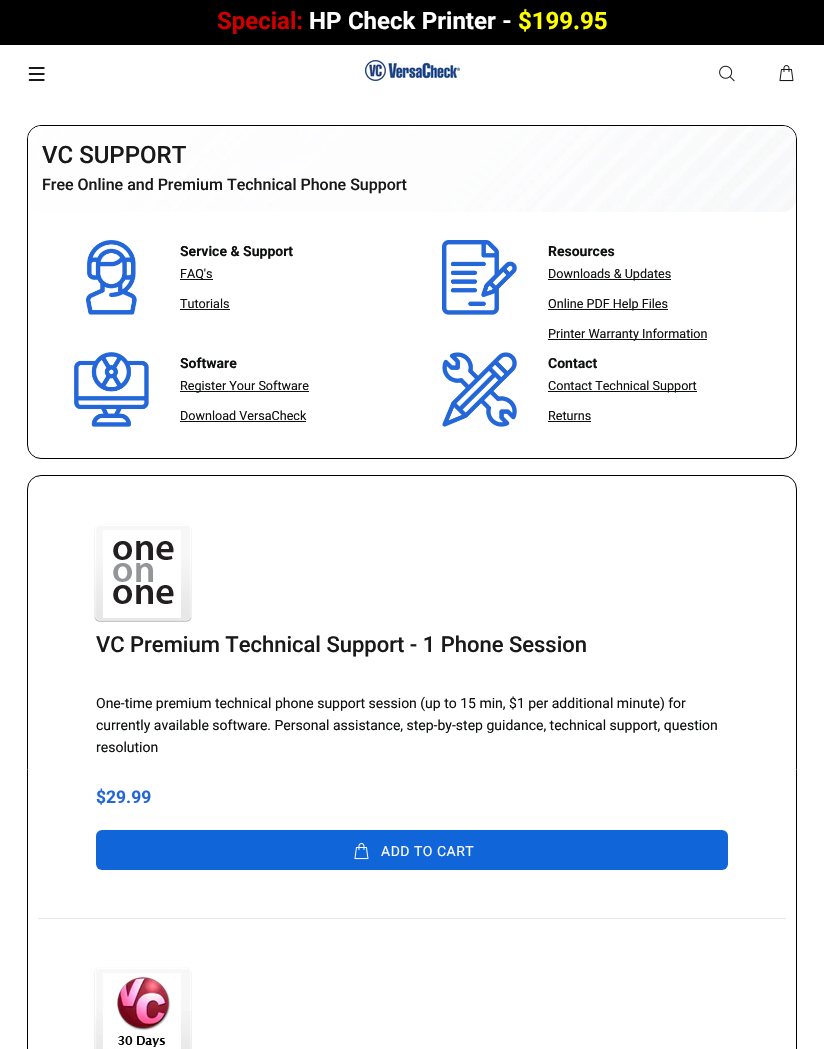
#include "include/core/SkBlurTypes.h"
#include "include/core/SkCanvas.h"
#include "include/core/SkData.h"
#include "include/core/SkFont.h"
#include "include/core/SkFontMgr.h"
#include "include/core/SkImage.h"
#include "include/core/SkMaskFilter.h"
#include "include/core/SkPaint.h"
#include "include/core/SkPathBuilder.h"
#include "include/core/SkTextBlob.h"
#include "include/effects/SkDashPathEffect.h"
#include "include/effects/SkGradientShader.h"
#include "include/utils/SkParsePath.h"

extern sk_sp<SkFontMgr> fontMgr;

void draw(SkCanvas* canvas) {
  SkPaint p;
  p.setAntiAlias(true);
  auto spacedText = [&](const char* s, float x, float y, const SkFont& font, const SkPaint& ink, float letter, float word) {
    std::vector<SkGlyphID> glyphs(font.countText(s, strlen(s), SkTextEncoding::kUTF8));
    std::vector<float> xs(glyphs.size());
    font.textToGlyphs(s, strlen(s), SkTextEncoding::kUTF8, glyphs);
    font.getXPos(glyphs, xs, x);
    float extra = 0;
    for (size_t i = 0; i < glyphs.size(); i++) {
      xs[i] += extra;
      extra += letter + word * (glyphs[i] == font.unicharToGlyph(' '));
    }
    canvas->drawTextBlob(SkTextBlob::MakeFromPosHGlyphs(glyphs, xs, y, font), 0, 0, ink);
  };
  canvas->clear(SK_ColorWHITE);
  p.setColor(SK_ColorBLACK);
  canvas->drawRect(SkRect::MakeLTRB(0, 0, 824, 45), p);
  canvas->drawImageRect(SkImages::DeferredFromEncodedData(SkData::MakeFromFileName("images/1.png")), SkRect::MakeLTRB(28, 67, 45, 81), SkSamplingOptions());
  canvas->drawImageRect(SkImages::DeferredFromEncodedData(SkData::MakeFromFileName("images/2.png")), SkRect::MakeLTRB(365, 60, 460, 81), SkSamplingOptions());
  canvas->drawImageRect(SkImages::DeferredFromEncodedData(SkData::MakeFromFileName("images/3.png")), SkRect::MakeLTRB(719, 65, 735, 82), SkSamplingOptions());
  canvas->drawImageRect(SkImages::DeferredFromEncodedData(SkData::MakeFromFileName("images/4.png")), SkRect::MakeLTRB(779, 65, 794, 82), SkSamplingOptions());
  p.setStyle(SkPaint::kStroke_Style);
  p.setStrokeWidth(1);
  canvas->drawRoundRect(SkRect::MakeLTRB(27.5f, 125.5f, 796.5f, 458.5f), 13.5f, 13.5f, p);
  canvas->drawImageRect(SkImages::DeferredFromEncodedData(SkData::MakeFromFileName("images/5.png")), SkRect::MakeLTRB(28, 126, 796, 212), SkSamplingOptions());
  canvas->drawImageRect(SkImages::DeferredFromEncodedData(SkData::MakeFromFileName("images/6.png")), SkRect::MakeLTRB(86, 240, 137, 315), SkSamplingOptions());
  p.setStyle(SkPaint::kFill_Style);
  p.setColor(SkColorSetRGB(15, 17, 17));
  canvas->drawRect(SkRect::MakeLTRB(180, 279, 213, 280), p);
  canvas->drawRect(SkRect::MakeLTRB(180, 309, 230, 310), p);
  canvas->drawImageRect(SkImages::DeferredFromEncodedData(SkData::MakeFromFileName("images/7.png")), SkRect::MakeLTRB(442, 240, 517, 315), SkSamplingOptions());
  canvas->drawRect(SkRect::MakeLTRB(548, 279, 671, 280), p);
  canvas->drawRect(SkRect::MakeLTRB(548, 309, 668, 310), p);
  canvas->drawRect(SkRect::MakeLTRB(548, 339, 707, 340), p);
  canvas->drawImageRect(SkImages::DeferredFromEncodedData(SkData::MakeFromFileName("images/8.png")), SkRect::MakeLTRB(74, 352, 149, 427), SkSamplingOptions());
  canvas->drawRect(SkRect::MakeLTRB(180, 391, 309, 392), p);
  canvas->drawRect(SkRect::MakeLTRB(180, 421, 306, 422), p);
  canvas->drawImageRect(SkImages::DeferredFromEncodedData(SkData::MakeFromFileName("images/9.png")), SkRect::MakeLTRB(442, 352, 517, 427), SkSamplingOptions());
  canvas->drawRect(SkRect::MakeLTRB(548, 391, 697, 392), p);
  canvas->drawRect(SkRect::MakeLTRB(548, 421, 591, 422), p);
  p.setStyle(SkPaint::kStroke_Style);
  p.setColor(SK_ColorBLACK);
  canvas->drawRoundRect(SkRect::MakeLTRB(27.5f, 475.5f, 796.5f, 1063.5f), 13.5f, 13.5f, p);
  canvas->drawImageRect(SkImages::DeferredFromEncodedData(SkData::MakeFromFileName("images/10.png")), SkRect::MakeLTRB(94, 524, 192, 622), SkSamplingOptions());
  p.setStyle(SkPaint::kFill_Style);
  p.setColor(SkColorSetRGB(16, 101, 216));
  canvas->drawRoundRect(SkRect::MakeLTRB(96, 830, 728, 870), 6, 6, p);
  canvas->drawImageRect(SkImages::DeferredFromEncodedData(SkData::MakeFromFileName("images/11.png")), SkRect::MakeLTRB(354, 843, 369, 860), SkSamplingOptions());
  p.setColor(SkColorSetRGB(233, 231, 231));
  canvas->drawRect(SkRect::MakeLTRB(38, 918, 786, 919), p);
  canvas->drawImageRect(SkImages::DeferredFromEncodedData(SkData::MakeFromFileName("images/12.png")), SkRect::MakeLTRB(94, 967, 192, 1049), SkSamplingOptions());
  SkFont font1(fontMgr->matchFamilyStyle("Roboto", SkFontStyle::Bold()), 24);
  font1.setSubpixel(true);
  p.setColor(SkColorSetRGB(204, 0, 0));
  canvas->drawString("Special:", 217, 29, font1, p);
  p.setColor(SK_ColorWHITE);
  spacedText("HP Check Printer -", 309, 29, font1, p, 0, 0.5f);
  p.setColor(SkColorSetRGB(255, 255, 0));
  canvas->drawString("$199.95", 518, 29, font1, p);
  SkFont font2(fontMgr->matchFamilyStyle("Roboto", SkFontStyle(500, SkFontStyle::kNormal_Width, SkFontStyle::kUpright_Slant)), 24);
  font2.setSubpixel(true);
  p.setColor(SkColorSetRGB(25, 25, 25));
  canvas->drawString("VC SUPPORT", 42, 163, font2, p);
  SkFont font3(fontMgr->matchFamilyStyle("Roboto", SkFontStyle(500, SkFontStyle::kNormal_Width, SkFontStyle::kUpright_Slant)), 16);
  font3.setSubpixel(true);
  canvas->drawString("Free Online and Premium Technical Phone Support", 42, 190, font3, p);
  SkFont font4(fontMgr->matchFamilyStyle("Roboto", SkFontStyle::Bold()), 14);
  font4.setSubpixel(true);
  p.setColor(SkColorSetRGB(15, 17, 17));
  canvas->drawString("Service & Support", 180, 256, font4, p);
  SkFont font5(fontMgr->matchFamilyStyle("Roboto", SkFontStyle::Normal()), 12.6f);
  font5.setSubpixel(true);
  canvas->drawString("FAQ's", 180, 278, font5, p);
  canvas->drawString("Tutorials", 180, 308, font5, p);
  canvas->drawString("Resources", 548, 256, font4, p);
  canvas->drawString("Downloads & Updates", 548, 278, font5, p);
  canvas->drawString("Online PDF Help Files", 548, 308, font5, p);
  canvas->drawString("Printer Warranty Information", 548, 338, font5, p);
  canvas->drawString("Software", 180, 368, font4, p);
  canvas->drawString("Register Your Software", 180, 390, font5, p);
  canvas->drawString("Download VersaCheck", 180, 420, font5, p);
  canvas->drawString("Contact", 548, 368, font4, p);
  canvas->drawString("Contact Technical Support", 548, 390, font5, p);
  canvas->drawString("Returns", 548, 420, font5, p);
  SkFont font6(fontMgr->matchFamilyStyle("Roboto", SkFontStyle(500, SkFontStyle::kNormal_Width, SkFontStyle::kUpright_Slant)), 22);
  font6.setSubpixel(true);
  p.setColor(SkColorSetRGB(25, 25, 25));
  canvas->drawString("VC Premium Technical Support - 1 Phone Session", 96, 652, font6, p);
  SkFont font7(fontMgr->matchFamilyStyle("Roboto", SkFontStyle::Normal()), 14);
  font7.setSubpixel(true);
  p.setColor(SkColorSetRGB(15, 17, 17));
  canvas->drawString("One-time premium technical phone support session (up to 15 min, $1 per additional minute) for", 96, 708, font7, p);
  canvas->drawString("currently available software. Personal assistance, step-by-step guidance, technical support, question", 96, 730, font7, p);
  canvas->drawString("resolution", 96, 752, font7, p);
  SkFont font8(fontMgr->matchFamilyStyle("Roboto", SkFontStyle::Bold()), 17.5f);
  font8.setSubpixel(true);
  p.setColor(SkColorSetRGB(34, 103, 216));
  canvas->drawString("$29.99", 96, 803, font8, p);
  p.setColor(SK_ColorWHITE);
  spacedText("ADD TO CART", 381, 856, font7, p, 0.5f, 0);
}
